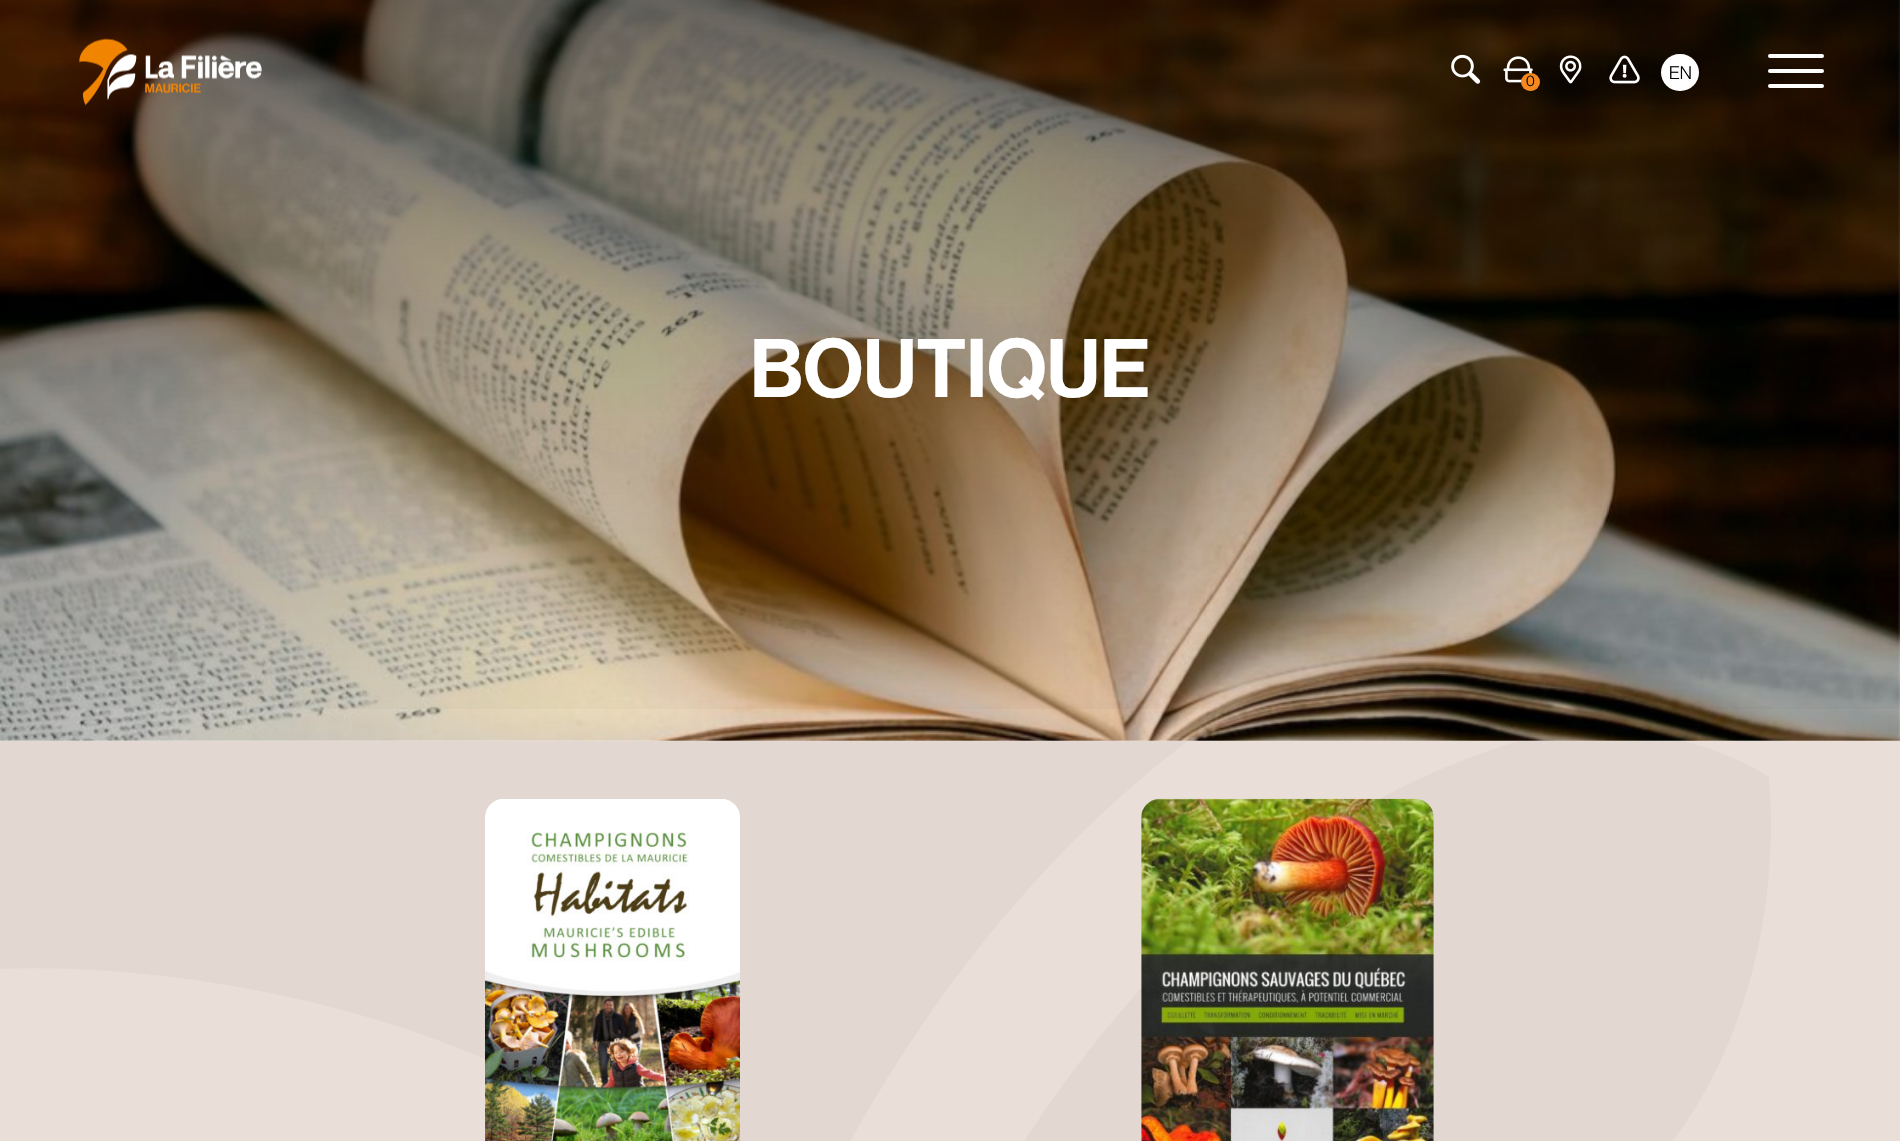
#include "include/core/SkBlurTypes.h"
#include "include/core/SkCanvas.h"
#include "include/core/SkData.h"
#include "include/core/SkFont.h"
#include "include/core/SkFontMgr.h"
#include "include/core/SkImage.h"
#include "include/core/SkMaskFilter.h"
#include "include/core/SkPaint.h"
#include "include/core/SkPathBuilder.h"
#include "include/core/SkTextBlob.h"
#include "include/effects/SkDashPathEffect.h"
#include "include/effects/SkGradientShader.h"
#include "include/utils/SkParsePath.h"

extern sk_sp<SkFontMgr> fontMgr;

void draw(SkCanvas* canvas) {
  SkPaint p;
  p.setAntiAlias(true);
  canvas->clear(SK_ColorWHITE);
  canvas->drawImageRect(SkImages::DeferredFromEncodedData(SkData::MakeFromFileName("images/6.png")), SkRect::MakeLTRB(0, 0, 1900, 741), SkSamplingOptions());
  {
    const SkColor colors[] = {SkColorSetARGB(128, 0, 0, 0), SkColorSetARGB(0, 0, 0, 0)};
    const float stops[] = {0, 1};
    const SkPoint ends[] = {{950, 0}, {950, 741}};
    p.setShader(SkGradientShader::MakeLinear(ends, colors, stops, 2, SkTileMode::kClamp));
    p.setAlpha(255);
  }
  canvas->drawRect(SkRect::MakeLTRB(0, 0, 1900, 709), p);
  canvas->drawImageRect(SkImages::DeferredFromEncodedData(SkData::MakeFromFileName("images/1.png")), SkRect::MakeLTRB(79, 38, 262, 106), SkSamplingOptions());
  canvas->drawImageRect(SkImages::DeferredFromEncodedData(SkData::MakeFromFileName("images/2.png")), SkRect::MakeLTRB(1451, 54, 1481, 84), SkSamplingOptions());
  canvas->drawImageRect(SkImages::DeferredFromEncodedData(SkData::MakeFromFileName("images/3.png")), SkRect::MakeLTRB(1559, 55, 1582, 84), SkSamplingOptions());
  canvas->drawImageRect(SkImages::DeferredFromEncodedData(SkData::MakeFromFileName("images/4.png")), SkRect::MakeLTRB(1609, 55, 1640, 84), SkSamplingOptions());
  p.setShader(nullptr);
  p.setColor(SK_ColorWHITE);
  canvas->drawRoundRect(SkRect::MakeLTRB(1661, 54, 1699, 91), 18.5f, 18.5f, p);
  canvas->drawImageRect(SkImages::DeferredFromEncodedData(SkData::MakeFromFileName("images/5.png")), SkRect::MakeLTRB(1503, 56, 1533, 83), SkSamplingOptions());
  p.setColor(SkColorSetRGB(246, 136, 32));
  canvas->drawRoundRect(SkRect::MakeLTRB(1521, 73, 1540, 91), 9, 9, p);
  p.setColor(SK_ColorWHITE);
  canvas->drawRoundRect(SkRect::MakeLTRB(1768, 54, 1824, 58), 2, 2, p);
  canvas->drawRoundRect(SkRect::MakeLTRB(1768, 69, 1824, 73), 2, 2, p);
  canvas->drawRoundRect(SkRect::MakeLTRB(1768, 84, 1824, 88), 2, 2, p);
  p.setColor(SkColorSetRGB(234, 222, 216));
  canvas->drawRect(SkRect::MakeLTRB(0, 741, 1900, 1141), p);
  canvas->drawImageRect(SkImages::DeferredFromEncodedData(SkData::MakeFromFileName("images/7.png")), SkRect::MakeLTRB(0, 741, 1771, 1141), SkSamplingOptions());
  canvas->drawImageRect(SkImages::DeferredFromEncodedData(SkData::MakeFromFileName("images/8.png")), SkRect::MakeLTRB(485, 799, 740, 1141), SkSamplingOptions());
  canvas->drawImageRect(SkImages::DeferredFromEncodedData(SkData::MakeFromFileName("images/9.png")), SkRect::MakeLTRB(1141, 798, 1434, 1141), SkSamplingOptions());
  SkFont font1(fontMgr->matchFamilyStyle("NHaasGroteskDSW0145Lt", SkFontStyle::Normal()), 18);
  font1.setSubpixel(true);
  p.setColor(SK_ColorBLACK);
  canvas->drawString("EN", 1669, 79, font1, p);
  SkFont font2(fontMgr->matchFamilyStyle("NHaasGroteskDSW0145Lt", SkFontStyle::Normal()), 15);
  font2.setSubpixel(true);
  canvas->drawString("0", 1526, 86, font2, p);
  SkFont font3(fontMgr->matchFamilyStyle("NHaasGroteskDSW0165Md", SkFontStyle(500, SkFontStyle::kNormal_Width, SkFontStyle::kUpright_Slant)), 81.25f);
  font3.setSubpixel(true);
  p.setColor(SK_ColorWHITE);
  canvas->drawString("BOUTIQUE", 750, 397, font3, p);
}
